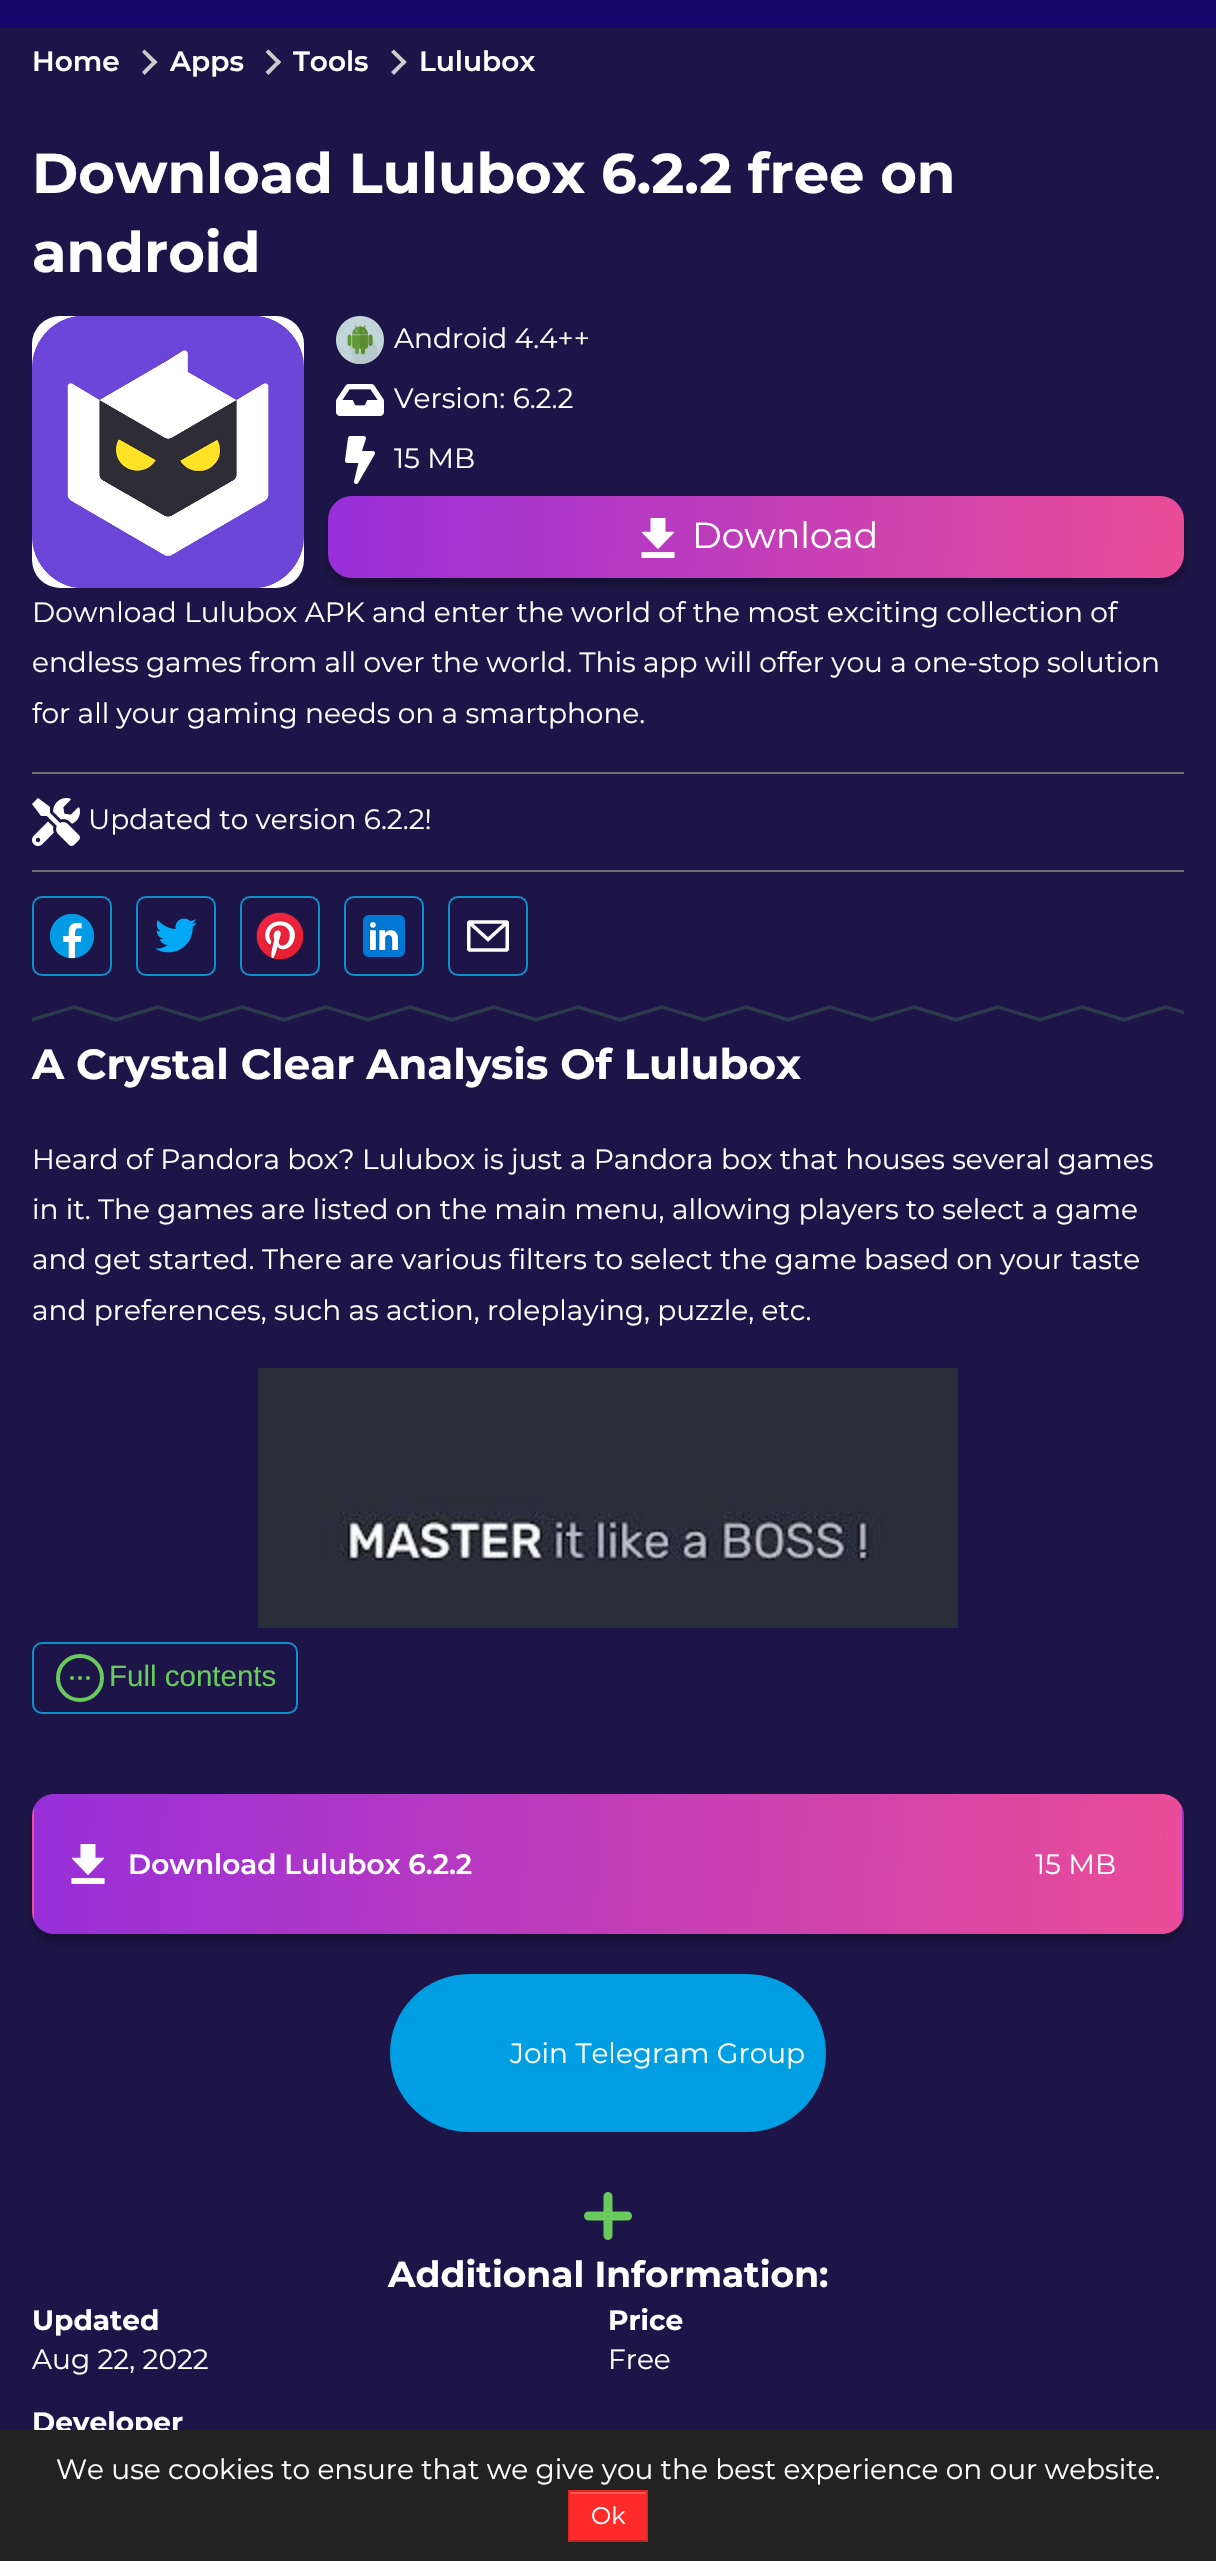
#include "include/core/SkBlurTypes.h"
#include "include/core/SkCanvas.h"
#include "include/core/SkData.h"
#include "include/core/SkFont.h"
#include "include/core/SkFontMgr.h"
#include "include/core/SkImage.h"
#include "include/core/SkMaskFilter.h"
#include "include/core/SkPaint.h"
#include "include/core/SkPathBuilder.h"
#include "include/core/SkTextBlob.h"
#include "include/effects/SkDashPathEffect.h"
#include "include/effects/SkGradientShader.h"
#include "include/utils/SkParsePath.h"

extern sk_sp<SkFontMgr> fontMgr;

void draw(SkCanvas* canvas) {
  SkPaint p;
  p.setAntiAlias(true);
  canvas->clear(SkColorSetRGB(29, 21, 71));
  p.setColor(SkColorSetRGB(22, 6, 108));
  canvas->drawRect(SkRect::MakeLTRB(0, 0, 1216, 28), p);
  p.setColor(SkColorSetRGB(204, 204, 204));
  canvas->drawPath(SkPathBuilder().moveTo(142, 52).lineTo(144.5f, 49.5f).lineTo(157.5f, 62).lineTo(154.5f, 65).close().detach(), p);
  canvas->drawPath(SkPathBuilder().moveTo(142, 72).lineTo(154.5f, 59.5f).lineTo(157.5f, 62).lineTo(144.5f, 75).close().detach(), p);
  canvas->drawPath(SkPathBuilder().moveTo(265.5f, 52).lineTo(268.5f, 49.5f).lineTo(281, 62).lineTo(278.5f, 65).close().detach(), p);
  canvas->drawPath(SkPathBuilder().moveTo(265.5f, 72).lineTo(278.5f, 59.5f).lineTo(281, 62).lineTo(268.5f, 75).close().detach(), p);
  canvas->drawPath(SkPathBuilder().moveTo(391, 52).lineTo(394, 49.5f).lineTo(406.5f, 62).lineTo(404, 65).close().detach(), p);
  canvas->drawPath(SkPathBuilder().moveTo(391, 72).lineTo(404, 59.5f).lineTo(406.5f, 62).lineTo(394, 75).close().detach(), p);
  canvas->drawImageRect(SkImages::DeferredFromEncodedData(SkData::MakeFromFileName("images/1.png")), SkRect::MakeLTRB(32, 316, 304, 588), SkSamplingOptions());
  canvas->drawImageRect(SkImages::DeferredFromEncodedData(SkData::MakeFromFileName("images/2.png")), SkRect::MakeLTRB(336, 316, 384, 364), SkSamplingOptions());
  canvas->drawImageRect(SkImages::DeferredFromEncodedData(SkData::MakeFromFileName("images/3.png")), SkRect::MakeLTRB(336, 384, 384, 416), SkSamplingOptions());
  canvas->drawImageRect(SkImages::DeferredFromEncodedData(SkData::MakeFromFileName("images/4.png")), SkRect::MakeLTRB(345, 436, 375, 484), SkSamplingOptions());
  p.setColor(SkColorSetARGB(64, 0, 0, 0));
  p.setMaskFilter(SkMaskFilter::MakeBlur(kNormal_SkBlurStyle, 4));
  canvas->drawRoundRect(SkRect::MakeLTRB(328, 504, 1184, 586), 24, 24, p);
  p.setMaskFilter(nullptr);
  {
    const SkColor colors[] = {SkColorSetRGB(152, 47, 217), SkColorSetRGB(253, 83, 137)};
    const float stops[] = {0, 1};
    const SkPoint ends[] = {{327, 509}, {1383, 577}};
    p.setShader(SkGradientShader::MakeLinear(ends, colors, stops, 2, SkTileMode::kClamp));
    p.setAlpha(255);
  }
  canvas->drawRoundRect(SkRect::MakeLTRB(328, 496, 1184, 578), 24, 24, p);
  canvas->drawImageRect(SkImages::DeferredFromEncodedData(SkData::MakeFromFileName("images/5.png")), SkRect::MakeLTRB(641, 518, 675, 558), SkSamplingOptions());
  p.setShader(nullptr);
  p.setColor(SkColorSetRGB(112, 112, 112));
  canvas->drawRect(SkRect::MakeLTRB(32, 772, 1184, 774), p);
  canvas->drawRect(SkRect::MakeLTRB(32, 870, 1184, 872), p);
  canvas->drawImageRect(SkImages::DeferredFromEncodedData(SkData::MakeFromFileName("images/6.png")), SkRect::MakeLTRB(32, 798, 80, 846), SkSamplingOptions());
  p.setStyle(SkPaint::kStroke_Style);
  p.setStrokeWidth(2);
  p.setColor(SkColorSetRGB(16, 144, 203));
  canvas->drawRoundRect(SkRect::MakeLTRB(33, 897, 111, 975), 9, 9, p);
  canvas->drawImageRect(SkImages::DeferredFromEncodedData(SkData::MakeFromFileName("images/7.png")), SkRect::MakeLTRB(49, 913, 95, 959), SkSamplingOptions());
  canvas->drawRoundRect(SkRect::MakeLTRB(137, 897, 215, 975), 9, 9, p);
  canvas->drawImageRect(SkImages::DeferredFromEncodedData(SkData::MakeFromFileName("images/8.png")), SkRect::MakeLTRB(155, 918, 197, 953), SkSamplingOptions());
  canvas->drawRoundRect(SkRect::MakeLTRB(241, 897, 319, 975), 9, 9, p);
  canvas->drawImageRect(SkImages::DeferredFromEncodedData(SkData::MakeFromFileName("images/9.png")), SkRect::MakeLTRB(256, 912, 304, 960), SkSamplingOptions());
  canvas->drawRoundRect(SkRect::MakeLTRB(345, 897, 423, 975), 9, 9, p);
  canvas->drawImageRect(SkImages::DeferredFromEncodedData(SkData::MakeFromFileName("images/10.png")), SkRect::MakeLTRB(363, 915, 405, 957), SkSamplingOptions());
  canvas->drawRoundRect(SkRect::MakeLTRB(449, 897, 527, 975), 9, 9, p);
  canvas->drawImageRect(SkImages::DeferredFromEncodedData(SkData::MakeFromFileName("images/11.png")), SkRect::MakeLTRB(467, 920, 509, 952), SkSamplingOptions());
  canvas->drawImageRect(SkImages::DeferredFromEncodedData(SkData::MakeFromFileName("images/12.png")), SkRect::MakeLTRB(32, 1005, 1184, 1022), SkSamplingOptions());
  canvas->drawImageRect(SkImages::DeferredFromEncodedData(SkData::MakeFromFileName("images/13.png")), SkRect::MakeLTRB(258, 1368, 958, 1628), SkSamplingOptions());
  canvas->drawRoundRect(SkRect::MakeLTRB(33, 1643, 297, 1713), 9, 9, p);
  p.setStrokeWidth(4);
  p.setColor(SkColorSetRGB(104, 203, 91));
  canvas->drawCircle(80, 1678, 22, p);
  p.setStyle(SkPaint::kFill_Style);
  canvas->drawCircle(72, 1678, 2, p);
  canvas->drawCircle(80, 1678, 2, p);
  canvas->drawCircle(88, 1678, 2, p);
  p.setColor(SkColorSetARGB(64, 0, 0, 0));
  p.setMaskFilter(SkMaskFilter::MakeBlur(kNormal_SkBlurStyle, 4));
  canvas->drawRoundRect(SkRect::MakeLTRB(32, 1802, 1184, 1942), 22, 22, p);
  p.setMaskFilter(nullptr);
  canvas->save();
  canvas->clipPath(SkPathBuilder().moveTo(54, 1794).lineTo(1162, 1794).cubicTo(1174, 1794, 1184, 1804, 1184, 1816).lineTo(1184, 1912).cubicTo(1184, 1924, 1174, 1934, 1162, 1934).lineTo(54, 1934).cubicTo(42, 1934, 32, 1924, 32, 1912).lineTo(32, 1816).cubicTo(32, 1804, 42, 1794, 54, 1794).close().detach(), true);
  {
    const SkColor colors[] = {SkColorSetRGB(152, 47, 217), SkColorSetRGB(253, 83, 137)};
    const float stops[] = {0, 1};
    const SkPoint ends[] = {{32, 1691}, {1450, 1782}};
    p.setShader(SkGradientShader::MakeLinear(ends, colors, stops, 2, SkTileMode::kClamp));
    p.setAlpha(255);
  }
  canvas->drawRect(SkRect::MakeLTRB(45, 1794, 1171, 1796), p);
  {
    const SkColor colors[] = {SkColorSetRGB(152, 47, 217), SkColorSetRGB(253, 83, 137)};
    const float stops[] = {0, 1};
    const SkPoint ends[] = {{-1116, 1827}, {302, 1918}};
    p.setShader(SkGradientShader::MakeLinear(ends, colors, stops, 2, SkTileMode::kClamp));
    p.setAlpha(255);
  }
  canvas->drawRect(SkRect::MakeLTRB(32, 1807, 34, 1921), p);
  {
    const SkColor colors[] = {SkColorSetRGB(152, 47, 217), SkColorSetRGB(253, 83, 137)};
    const float stops[] = {0, 1};
    const SkPoint ends[] = {{32, 1827}, {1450, 1918}};
    p.setShader(SkGradientShader::MakeLinear(ends, colors, stops, 2, SkTileMode::kClamp));
    p.setAlpha(255);
  }
  canvas->drawRect(SkRect::MakeLTRB(34, 1796, 1182, 1932), p);
  {
    const SkColor colors[] = {SkColorSetRGB(152, 47, 217), SkColorSetRGB(253, 83, 137)};
    const float stops[] = {0, 1};
    const SkPoint ends[] = {{1180, 1827}, {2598, 1918}};
    p.setShader(SkGradientShader::MakeLinear(ends, colors, stops, 2, SkTileMode::kClamp));
    p.setAlpha(255);
  }
  canvas->drawRect(SkRect::MakeLTRB(1182, 1807, 1184, 1921), p);
  {
    const SkColor colors[] = {SkColorSetRGB(152, 47, 217), SkColorSetRGB(253, 83, 137)};
    const float stops[] = {0, 1};
    const SkPoint ends[] = {{32, 1963}, {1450, 2054}};
    p.setShader(SkGradientShader::MakeLinear(ends, colors, stops, 2, SkTileMode::kClamp));
    p.setAlpha(255);
  }
  canvas->drawRect(SkRect::MakeLTRB(45, 1932, 1171, 1934), p);
  canvas->restore();
  canvas->drawImageRect(SkImages::DeferredFromEncodedData(SkData::MakeFromFileName("images/14.png")), SkRect::MakeLTRB(71, 1844, 105, 1884), SkSamplingOptions());
  p.setShader(nullptr);
  p.setColor(SkColorSetRGB(0, 159, 227));
  canvas->drawRoundRect(SkRect::MakeLTRB(390, 1974, 826, 2132), 79, 79, p);
  canvas->drawImageRect(SkImages::DeferredFromEncodedData(SkData::MakeFromFileName("images/15.png")), SkRect::MakeLTRB(584, 2192, 632, 2240), SkSamplingOptions());
  SkFont font1(fontMgr->matchFamilyStyle("Montserrat", SkFontStyle(600, SkFontStyle::kNormal_Width, SkFontStyle::kUpright_Slant)), 28);
  font1.setSubpixel(true);
  p.setColor(SK_ColorWHITE);
  canvas->drawString("Home", 32, 71, font1, p);
  canvas->drawString("Apps", 170, 71, font1, p);
  canvas->drawString("Tools", 293, 71, font1, p);
  canvas->drawString("Lulubox", 419, 71, font1, p);
  SkFont font2(fontMgr->matchFamilyStyle("Montserrat", SkFontStyle::Bold()), 56);
  font2.setSubpixel(true);
  canvas->drawString("Download Lulubox 6.2.2 free on", 32, 193, font2, p);
  canvas->drawString("android", 32, 272, font2, p);
  SkFont font3(fontMgr->matchFamilyStyle("Montserrat", SkFontStyle::Normal()), 28);
  font3.setSubpixel(true);
  canvas->drawString("Android 4.4++", 394, 348, font3, p);
  canvas->drawString("Version: 6.2.2", 394, 408, font3, p);
  canvas->drawString("15 MB", 394, 468, font3, p);
  SkFont font4(fontMgr->matchFamilyStyle("Montserrat", SkFontStyle::Normal()), 36);
  font4.setSubpixel(true);
  canvas->drawString("Download", 692, 548, font4, p);
  canvas->drawString("Download Lulubox APK and enter the world of the most exciting collection of", 32, 622, font3, p);
  canvas->drawString("endless games from all over the world. This app will offer you a one-stop solution", 32, 672, font3, p);
  canvas->drawString("for all your gaming needs on a smartphone.", 32, 723, font3, p);
  canvas->drawString("Updated to version 6.2.2!", 88, 829, font3, p);
  SkFont font5(fontMgr->matchFamilyStyle("Montserrat", SkFontStyle::Bold()), 42);
  font5.setSubpixel(true);
  canvas->drawString("A Crystal Clear Analysis Of Lulubox", 32, 1079, font5, p);
  canvas->drawString("Heard of Pandora box? Lulubox is just a Pandora box that houses several games", 32, 1169, font3, p);
  canvas->drawString("in it. The games are listed on the main menu, allowing players to select a game", 32, 1219, font3, p);
  canvas->drawString("and get started. There are various filters to select the game based on your taste", 32, 1269, font3, p);
  canvas->drawString("and preferences, such as action, roleplaying, puzzle, etc.", 32, 1320, font3, p);
  SkFont font6(fontMgr->matchFamilyStyle("Liberation Sans", SkFontStyle::Normal()), 29.5f);
  font6.setSubpixel(true);
  p.setColor(SkColorSetRGB(104, 203, 91));
  canvas->drawString("Full contents", 109, 1686, font6, p);
  p.setColor(SK_ColorWHITE);
  canvas->drawString("Download Lulubox 6.2.2", 128, 1874, font1, p);
  canvas->drawString("15 MB", 1035, 1874, font3, p);
  canvas->drawString("Join Telegram Group", 510, 2063, font3, p);
  SkFont font7(fontMgr->matchFamilyStyle("Montserrat", SkFontStyle::Bold()), 36);
  font7.setSubpixel(true);
  canvas->drawString("Additional Information:", 388, 2287, font7, p);
  SkFont font8(fontMgr->matchFamilyStyle("Montserrat", SkFontStyle::Bold()), 28);
  font8.setSubpixel(true);
  canvas->drawString("Updated", 32, 2330, font8, p);
  canvas->drawString("Aug 22, 2022", 32, 2369, font3, p);
  canvas->drawString("Price", 608, 2330, font8, p);
  canvas->drawString("Free", 608, 2369, font3, p);
  canvas->drawString("Developer", 32, 2432, font8, p);
  p.setColor(SkColorSetRGB(35, 34, 34));
  canvas->drawRect(SkRect::MakeLTRB(0, 2430, 1216, 2561), p);
  p.setColor(SK_ColorWHITE);
  canvas->drawString("We use cookies to ensure that we give you the best experience on our website.", 56, 2479, font3, p);
  p.setColor(SkColorSetRGB(255, 42, 42));
  canvas->drawRect(SkRect::MakeLTRB(568, 2490, 648, 2542), p);
  p.setColor(SkColorSetRGB(255, 85, 85));
  canvas->drawRect(SkRect::MakeLTRB(570, 2492, 646, 2494), p);
  p.setColor(SkColorSetRGB(230, 38, 38));
  canvas->drawPath(SkPathBuilder().moveTo(568, 2490).lineTo(648, 2490).lineTo(646, 2492).lineTo(570, 2492).close().detach(), p);
  p.setColor(SkColorSetARGB(26, 0, 0, 0));
  canvas->drawPath(SkPathBuilder().moveTo(648, 2490).lineTo(648, 2542).lineTo(646, 2540).lineTo(646, 2492).close().detach(), p);
  p.setColor(SkColorSetARGB(64, 0, 0, 0));
  canvas->drawPath(SkPathBuilder().moveTo(648, 2542).lineTo(568, 2542).lineTo(570, 2540).lineTo(646, 2540).close().detach(), p);
  p.setColor(SkColorSetARGB(26, 0, 0, 0));
  canvas->drawPath(SkPathBuilder().moveTo(568, 2542).lineTo(568, 2490).lineTo(570, 2492).lineTo(570, 2540).close().detach(), p);
  SkFont font9(fontMgr->matchFamilyStyle("Montserrat", SkFontStyle::Normal()), 24);
  font9.setSubpixel(true);
  p.setColor(SK_ColorWHITE);
  canvas->drawString("Ok", 591, 2524, font9, p);
}
